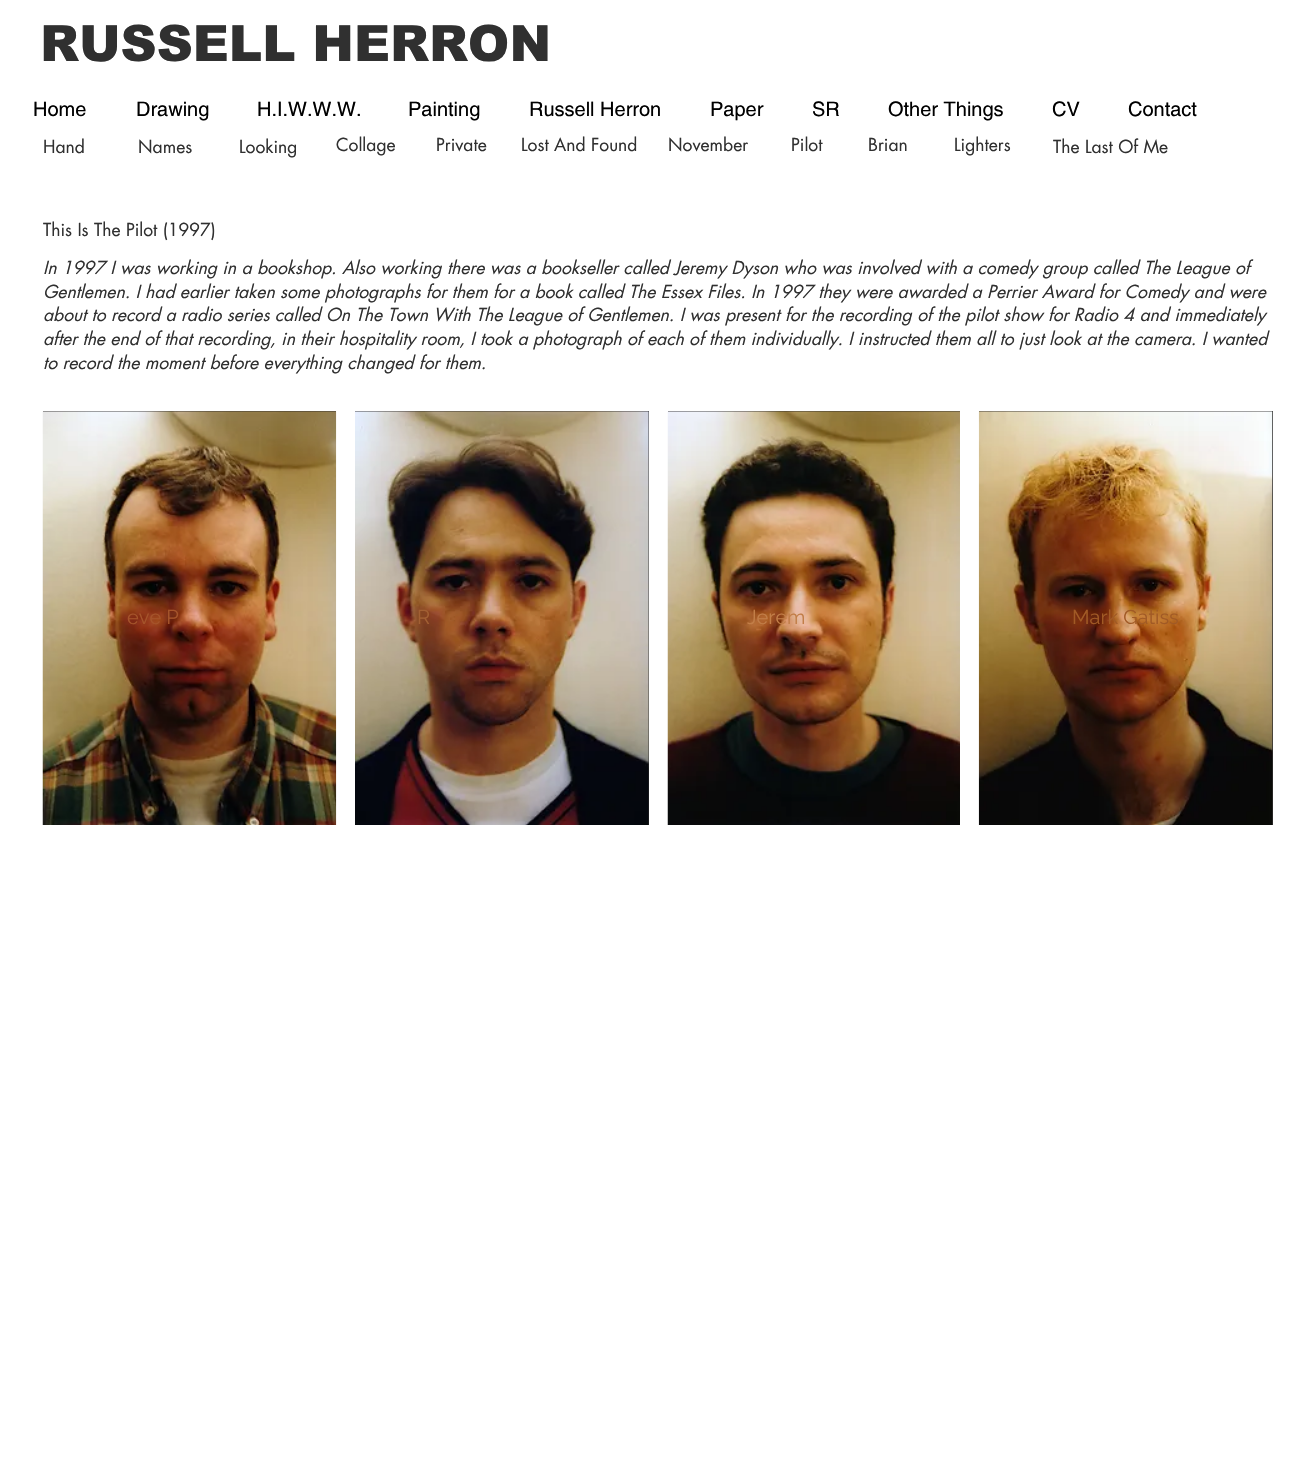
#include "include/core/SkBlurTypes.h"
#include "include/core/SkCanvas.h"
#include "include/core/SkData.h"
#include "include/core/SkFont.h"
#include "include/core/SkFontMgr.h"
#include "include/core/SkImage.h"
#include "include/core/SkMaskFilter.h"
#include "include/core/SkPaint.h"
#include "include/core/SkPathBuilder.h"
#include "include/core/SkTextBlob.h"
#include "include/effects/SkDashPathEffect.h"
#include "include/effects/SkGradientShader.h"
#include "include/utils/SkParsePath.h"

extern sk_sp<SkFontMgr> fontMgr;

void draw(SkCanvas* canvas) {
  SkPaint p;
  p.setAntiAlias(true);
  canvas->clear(SK_ColorWHITE);
  p.setColor(SkColorSetRGB(47, 46, 46));
  canvas->drawRect(SkRect::MakeLTRB(43, 411, 336, 412), p);
  canvas->drawImageRect(SkImages::DeferredFromEncodedData(SkData::MakeFromFileName("images/1.png")), SkRect::MakeLTRB(42, 411, 337, 825), SkSamplingOptions());
  canvas->drawRect(SkRect::MakeLTRB(355, 411, 649, 825), p);
  canvas->drawImageRect(SkImages::DeferredFromEncodedData(SkData::MakeFromFileName("images/2.png")), SkRect::MakeLTRB(355, 411, 649, 825), SkSamplingOptions());
  canvas->drawRect(SkRect::MakeLTRB(668, 411, 960, 412), p);
  canvas->drawImageRect(SkImages::DeferredFromEncodedData(SkData::MakeFromFileName("images/3.png")), SkRect::MakeLTRB(667, 411, 960, 825), SkSamplingOptions());
  canvas->drawRect(SkRect::MakeLTRB(979, 411, 1273, 825), p);
  canvas->drawImageRect(SkImages::DeferredFromEncodedData(SkData::MakeFromFileName("images/4.png")), SkRect::MakeLTRB(978, 411, 1273, 825), SkSamplingOptions());
  SkFont font1(fontMgr->matchFamilyStyle("arial", SkFontStyle(900, SkFontStyle::kNormal_Width, SkFontStyle::kUpright_Slant)), 50);
  font1.setSubpixel(true);
  p.setColor(SkColorSetRGB(48, 48, 48));
  canvas->drawString("RUSSELL HERRON", 40, 61, font1, p);
  SkFont font2(fontMgr->matchFamilyStyle("helvetica", SkFontStyle::Normal()), 20);
  font2.setSubpixel(true);
  p.setColor(SK_ColorBLACK);
  canvas->drawString("Home", 33, 116, font2, p);
  canvas->drawString("Drawing", 136, 116, font2, p);
  canvas->drawString("H.I.W.W.W.", 257, 116, font2, p);
  canvas->drawString("Painting", 408, 116, font2, p);
  canvas->drawString("Russell Herron", 529, 116, font2, p);
  canvas->drawString("Paper", 710, 116, font2, p);
  canvas->drawString("SR", 812, 116, font2, p);
  canvas->drawString("Other Things", 888, 116, font2, p);
  canvas->drawString("CV", 1052, 116, font2, p);
  canvas->drawString("Contact", 1128, 116, font2, p);
  SkFont font3(fontMgr->matchFamilyStyle("futura", SkFontStyle::Normal()), 17.5f);
  font3.setSubpixel(true);
  p.setColor(SkColorSetRGB(48, 48, 48));
  canvas->drawString("Hand", 43, 153, font3, p);
  canvas->drawString("Names", 138, 153, font3, p);
  canvas->drawString("Looking", 239, 153, font3, p);
  canvas->drawString("Collage", 336, 151, font3, p);
  canvas->drawString("Private", 436, 151, font3, p);
  canvas->drawString("Lost And Found", 521, 151, font3, p);
  canvas->drawString("November", 668, 151, font3, p);
  canvas->drawString("Pilot", 791, 151, font3, p);
  canvas->drawString("Brian", 868, 151, font3, p);
  canvas->drawString("Lighters", 954, 151, font3, p);
  canvas->drawString("The Last Of Me", 1053, 153, font3, p);
  canvas->drawString("This Is The Pilot (1997)", 43, 236, font3, p);
  SkFont font4(fontMgr->matchFamilyStyle("futura", SkFontStyle::Italic()), 17.5f);
  font4.setSubpixel(true);
  canvas->drawString("In 1997 I was working in a bookshop. Also working there was a bookseller called Jeremy Dyson who was involved with a comedy group called The League of", 43, 274, font4, p);
  canvas->drawString("Gentlemen. I had earlier taken some photographs for them for a book called The Essex Files. In 1997 they were awarded a Perrier Award for Comedy and were", 43, 298, font4, p);
  canvas->drawString("about to record a radio series called On The Town With The League of Gentlemen. I was present for the recording of the pilot show for Radio 4 and immediately", 43, 321, font4, p);
  canvas->drawString("after the end of that recording, in their hospitality room, I took a photograph of each of them individually. I instructed them all to just look at the camera. I wanted", 43, 345, font4, p);
  canvas->drawString("to record the moment before everything changed for them.", 43, 369, font4, p);
  SkFont font5(fontMgr->matchFamilyStyle("Raleway", SkFontStyle::Normal()), 20);
  font5.setSubpixel(true);
  p.setColor(SkColorSetRGB(165, 84, 42));
  canvas->drawString("eve P", 127, 624, font5, p);
  p.setColor(SkColorSetRGB(162, 96, 51));
  canvas->drawString("R", 417, 624, font5, p);
  p.setColor(SkColorSetRGB(194, 126, 72));
  canvas->drawString("Jerem", 747, 624, font5, p);
  p.setColor(SkColorSetRGB(161, 90, 37));
  canvas->drawString("Mark Gatiss", 1072, 624, font5, p);
}
